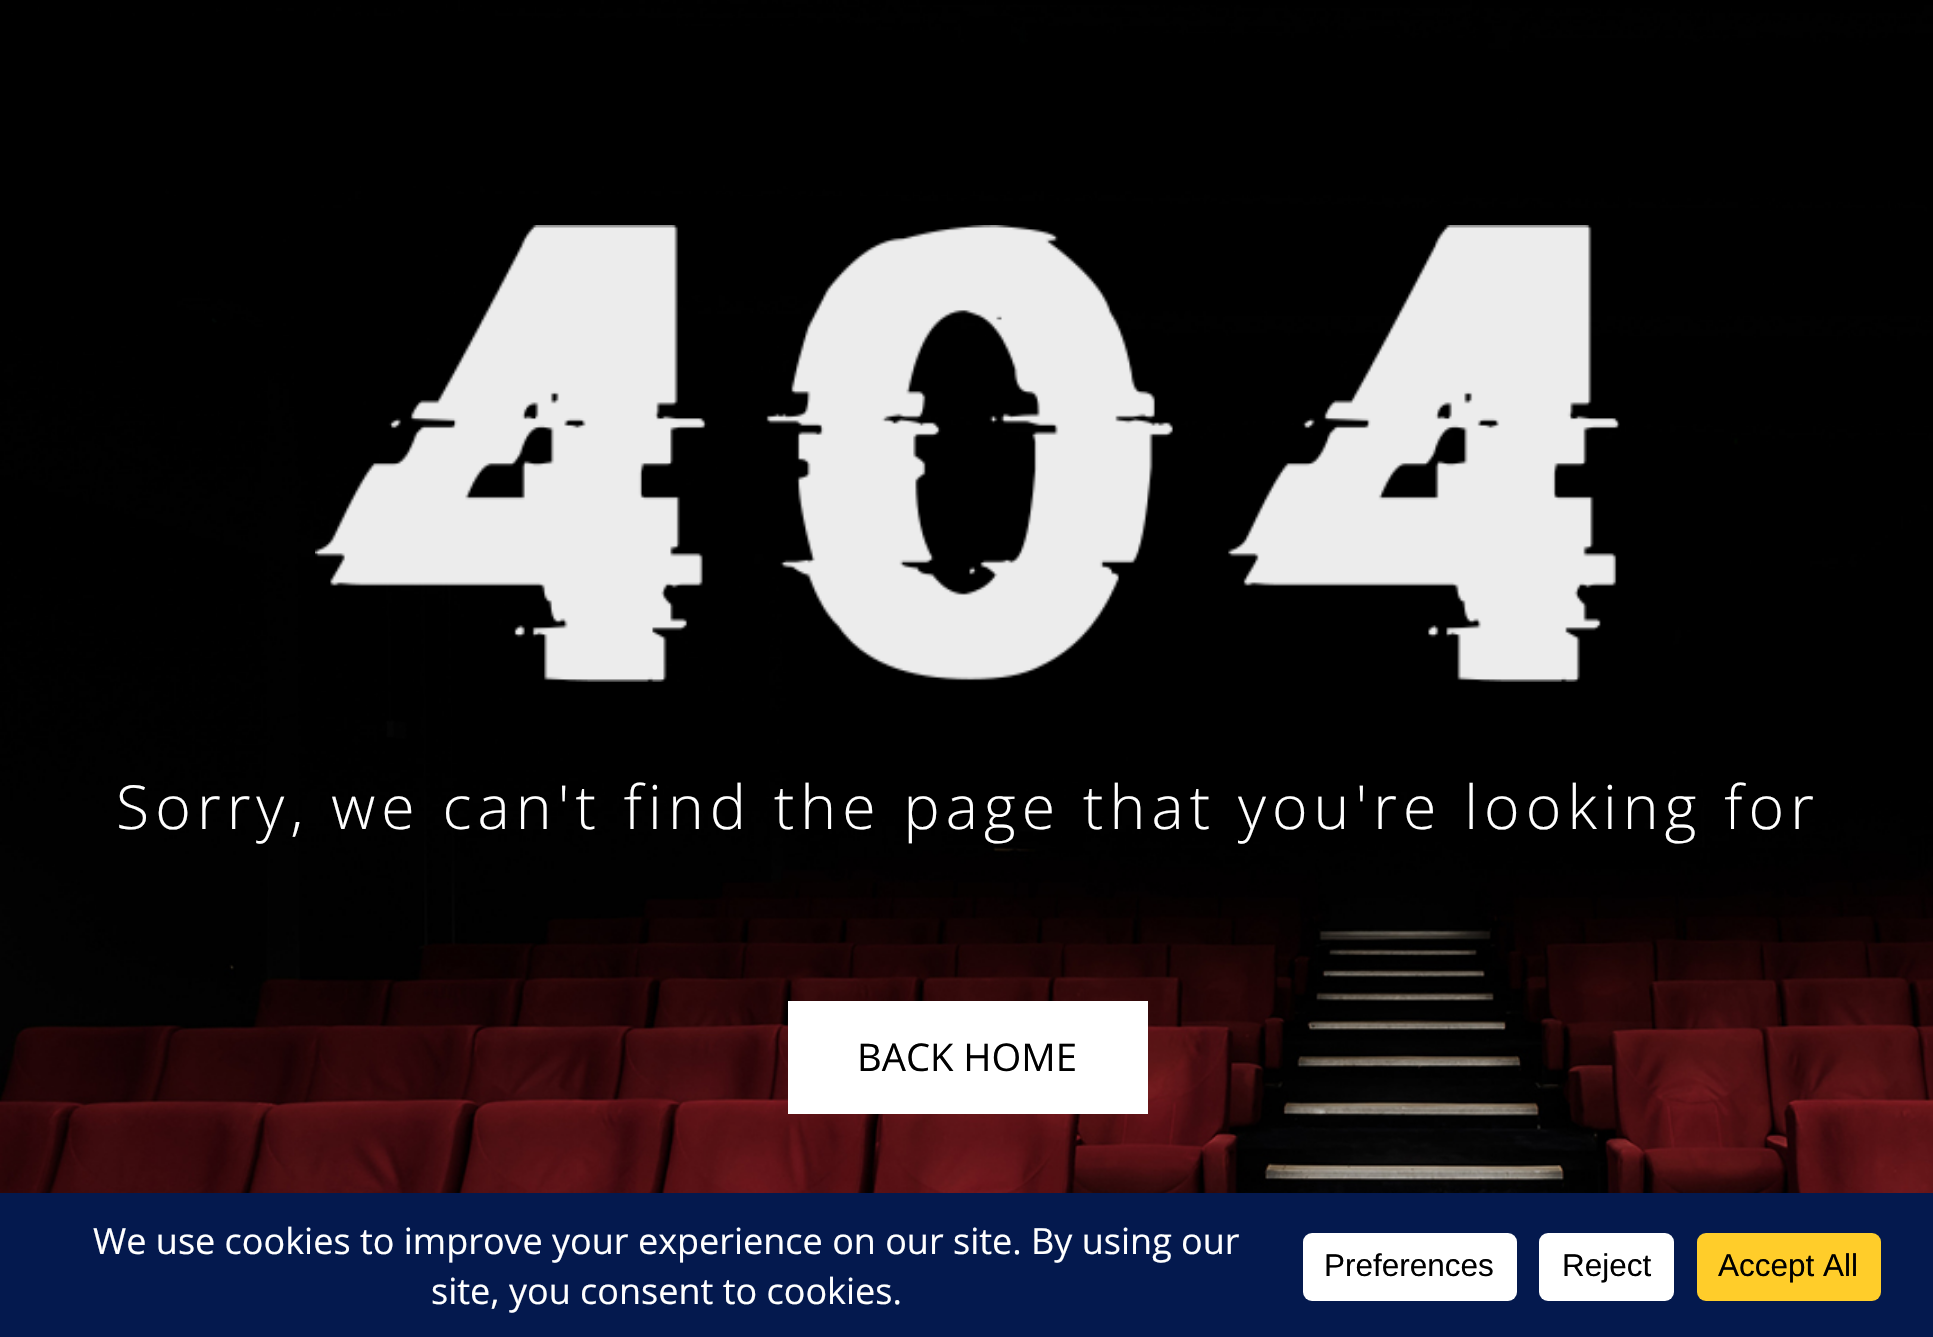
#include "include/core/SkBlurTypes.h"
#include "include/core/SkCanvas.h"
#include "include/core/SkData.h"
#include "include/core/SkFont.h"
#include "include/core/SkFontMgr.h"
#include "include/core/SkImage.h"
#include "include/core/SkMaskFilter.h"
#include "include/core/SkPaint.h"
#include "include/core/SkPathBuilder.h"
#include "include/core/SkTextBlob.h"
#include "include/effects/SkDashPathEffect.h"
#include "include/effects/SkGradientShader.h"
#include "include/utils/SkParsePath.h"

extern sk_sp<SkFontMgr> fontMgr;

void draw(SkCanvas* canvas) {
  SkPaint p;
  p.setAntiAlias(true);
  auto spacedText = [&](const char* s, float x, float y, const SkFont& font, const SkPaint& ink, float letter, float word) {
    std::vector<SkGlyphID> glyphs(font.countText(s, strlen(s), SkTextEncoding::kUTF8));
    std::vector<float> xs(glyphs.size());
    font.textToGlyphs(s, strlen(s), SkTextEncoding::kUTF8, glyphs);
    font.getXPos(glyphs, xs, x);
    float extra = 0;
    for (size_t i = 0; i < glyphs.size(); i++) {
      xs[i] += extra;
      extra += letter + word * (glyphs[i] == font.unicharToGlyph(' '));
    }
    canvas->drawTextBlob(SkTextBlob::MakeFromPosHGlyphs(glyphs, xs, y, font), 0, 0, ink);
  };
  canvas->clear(SK_ColorWHITE);
  canvas->drawImageRect(SkImages::DeferredFromEncodedData(SkData::MakeFromFileName("images/1.png")), SkRect::MakeLTRB(0, 0, 1933, 1193), SkSamplingOptions());
  canvas->drawImageRect(SkImages::DeferredFromEncodedData(SkData::MakeFromFileName("images/2.png")), SkRect::MakeLTRB(315, 225, 1620, 682), SkSamplingOptions());
  p.setColor(SK_ColorWHITE);
  canvas->drawRect(SkRect::MakeLTRB(788, 1001, 1148, 1114), p);
  p.setColor(SkColorSetRGB(4, 25, 78));
  canvas->drawRect(SkRect::MakeLTRB(0, 1193, 1933, 1337), p);
  p.setColor(SK_ColorWHITE);
  canvas->drawRoundRect(SkRect::MakeLTRB(1303, 1233, 1517, 1301), 9, 9, p);
  canvas->drawRoundRect(SkRect::MakeLTRB(1539, 1233, 1674, 1301), 9, 9, p);
  p.setColor(SkColorSetRGB(255, 205, 42));
  canvas->drawRoundRect(SkRect::MakeLTRB(1697, 1233, 1881, 1301), 9, 9, p);
  SkFont font1(fontMgr->matchFamilyStyle("Open Sans", SkFontStyle(300, SkFontStyle::kNormal_Width, SkFontStyle::kUpright_Slant)), 60.75f);
  font1.setSubpixel(true);
  p.setColor(SK_ColorWHITE);
  spacedText("Sorry, we can't find the page that you're looking for", 116, 829, font1, p, 6.08f, 0);
  SkFont font2(fontMgr->matchFamilyStyle("Open Sans", SkFontStyle::Normal()), 38.25f);
  font2.setSubpixel(true);
  p.setColor(SK_ColorBLACK);
  canvas->drawString("BACK HOME", 857, 1071, font2, p);
  SkFont font3(fontMgr->matchFamilyStyle("Open Sans", SkFontStyle::Normal()), 36);
  font3.setSubpixel(true);
  p.setColor(SK_ColorWHITE);
  canvas->drawString("We use cookies to improve your experience on our site. By using our", 93, 1254, font3, p);
  canvas->drawString("site, you consent to cookies.", 431, 1304, font3, p);
  SkFont font4(fontMgr->matchFamilyStyle("Liberation Sans", SkFontStyle::Normal()), 31.5f);
  font4.setSubpixel(true);
  p.setColor(SK_ColorBLACK);
  canvas->drawString("Preferences", 1324, 1276, font4, p);
  canvas->drawString("Reject", 1562, 1276, font4, p);
  canvas->drawString("Accept All", 1718, 1276, font4, p);
}
